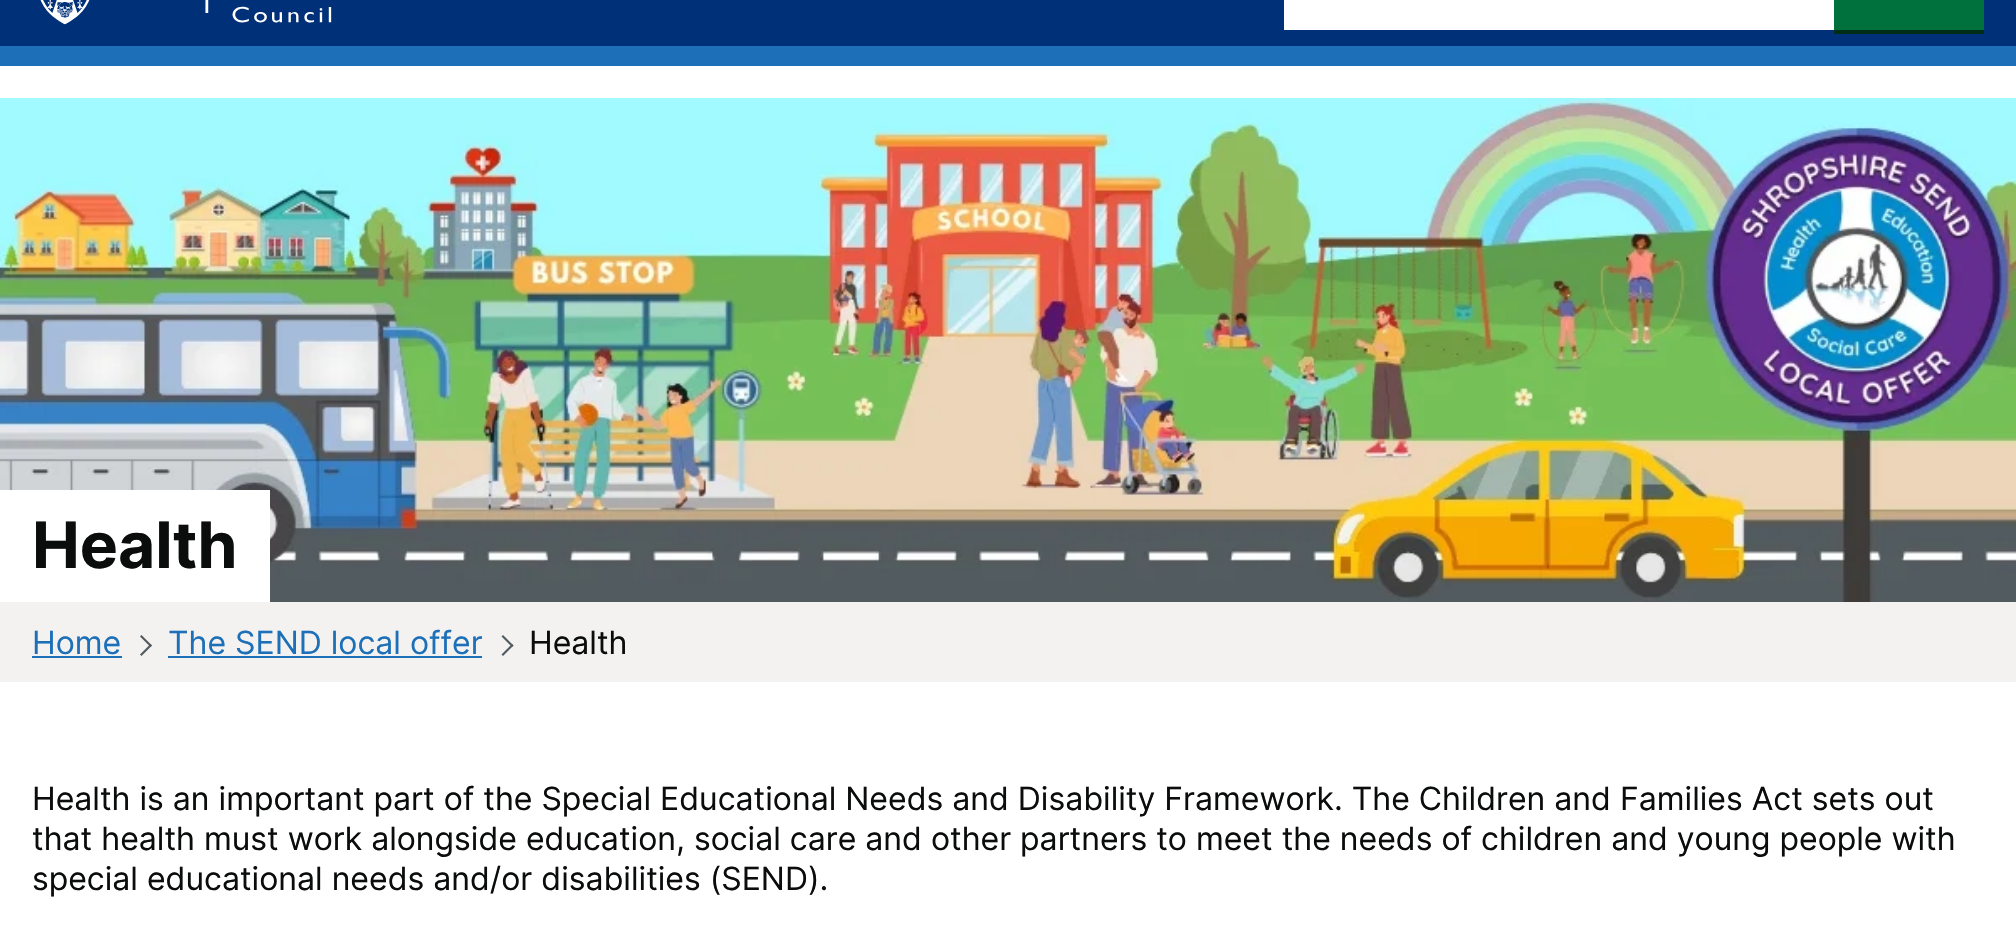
#include "include/core/SkBlurTypes.h"
#include "include/core/SkCanvas.h"
#include "include/core/SkData.h"
#include "include/core/SkFont.h"
#include "include/core/SkFontMgr.h"
#include "include/core/SkImage.h"
#include "include/core/SkMaskFilter.h"
#include "include/core/SkPaint.h"
#include "include/core/SkPathBuilder.h"
#include "include/core/SkTextBlob.h"
#include "include/effects/SkDashPathEffect.h"
#include "include/effects/SkGradientShader.h"
#include "include/utils/SkParsePath.h"

extern sk_sp<SkFontMgr> fontMgr;

void draw(SkCanvas* canvas) {
  SkPaint p;
  p.setAntiAlias(true);
  canvas->clear(SK_ColorWHITE);
  p.setColor(SkColorSetRGB(0, 48, 120));
  canvas->drawRect(SkRect::MakeLTRB(0, 0, 2016, 46), p);
  p.setColor(SkColorSetRGB(29, 112, 184));
  canvas->drawRect(SkRect::MakeLTRB(0, 46, 2016, 66), p);
  canvas->drawImageRect(SkImages::DeferredFromEncodedData(SkData::MakeFromFileName("images/1.png")), SkRect::MakeLTRB(40, 0, 332, 25), SkSamplingOptions());
  p.setColor(SK_ColorWHITE);
  canvas->drawRect(SkRect::MakeLTRB(1284, 0, 1834, 30), p);
  p.setColor(SkColorSetRGB(0, 45, 24));
  canvas->drawRect(SkRect::MakeLTRB(1834, 30, 1984, 34), p);
  p.setColor(SkColorSetRGB(0, 112, 60));
  canvas->drawRect(SkRect::MakeLTRB(1834, 0, 1984, 30), p);
  canvas->drawImageRect(SkImages::DeferredFromEncodedData(SkData::MakeFromFileName("images/2.png")), SkRect::MakeLTRB(0, 98, 2016, 602), SkSamplingOptions());
  p.setColor(SK_ColorWHITE);
  canvas->drawRect(SkRect::MakeLTRB(0, 490, 270, 602), p);
  p.setColor(SkColorSetRGB(243, 242, 241));
  canvas->drawRect(SkRect::MakeLTRB(0, 602, 2016, 682), p);
  p.setColor(SkColorSetRGB(29, 112, 184));
  canvas->drawRect(SkRect::MakeLTRB(32, 656, 122, 658), p);
  p.setColor(SkColorSetRGB(80, 90, 95));
  canvas->drawPath(SkPathBuilder().moveTo(141.5f, 635).lineTo(152, 645.5f).lineTo(150.5f, 647).lineTo(140, 636.5f).close().detach(), p);
  canvas->drawPath(SkPathBuilder().moveTo(150.5f, 644).lineTo(152, 645.5f).lineTo(141.5f, 656).lineTo(140, 654.5f).close().detach(), p);
  p.setColor(SkColorSetRGB(29, 112, 184));
  canvas->drawRect(SkRect::MakeLTRB(168, 656, 482, 658), p);
  p.setColor(SkColorSetRGB(80, 90, 95));
  canvas->drawPath(SkPathBuilder().moveTo(503, 635).lineTo(513.5f, 645.5f).lineTo(512, 647).lineTo(501.5f, 636.5f).close().detach(), p);
  canvas->drawPath(SkPathBuilder().moveTo(512, 644).lineTo(513.5f, 645.5f).lineTo(503, 656).lineTo(501.5f, 654.5f).close().detach(), p);
  SkFont font1(fontMgr->matchFamilyStyle("Inter", SkFontStyle::Bold()), 64);
  font1.setSubpixel(true);
  p.setColor(SkColorSetRGB(11, 12, 12));
  canvas->drawString("Health", 32, 568, font1, p);
  SkFont font2(fontMgr->matchFamilyStyle("Inter", SkFontStyle::Normal()), 32);
  font2.setSubpixel(true);
  p.setColor(SkColorSetRGB(29, 112, 184));
  canvas->drawString("Home", 32, 654, font2, p);
  canvas->drawString("The SEND local offer", 168, 654, font2, p);
  p.setColor(SkColorSetRGB(11, 12, 12));
  canvas->drawString("Health", 529, 654, font2, p);
  canvas->drawString("Health is an important part of the Special Educational Needs and Disability Framework. The Children and Families Act sets out", 32, 810, font2, p);
  canvas->drawString("that health must work alongside education, social care and other partners to meet the needs of children and young people with", 32, 850, font2, p);
  canvas->drawString("special educational needs and/or disabilities (SEND).", 32, 890, font2, p);
}
